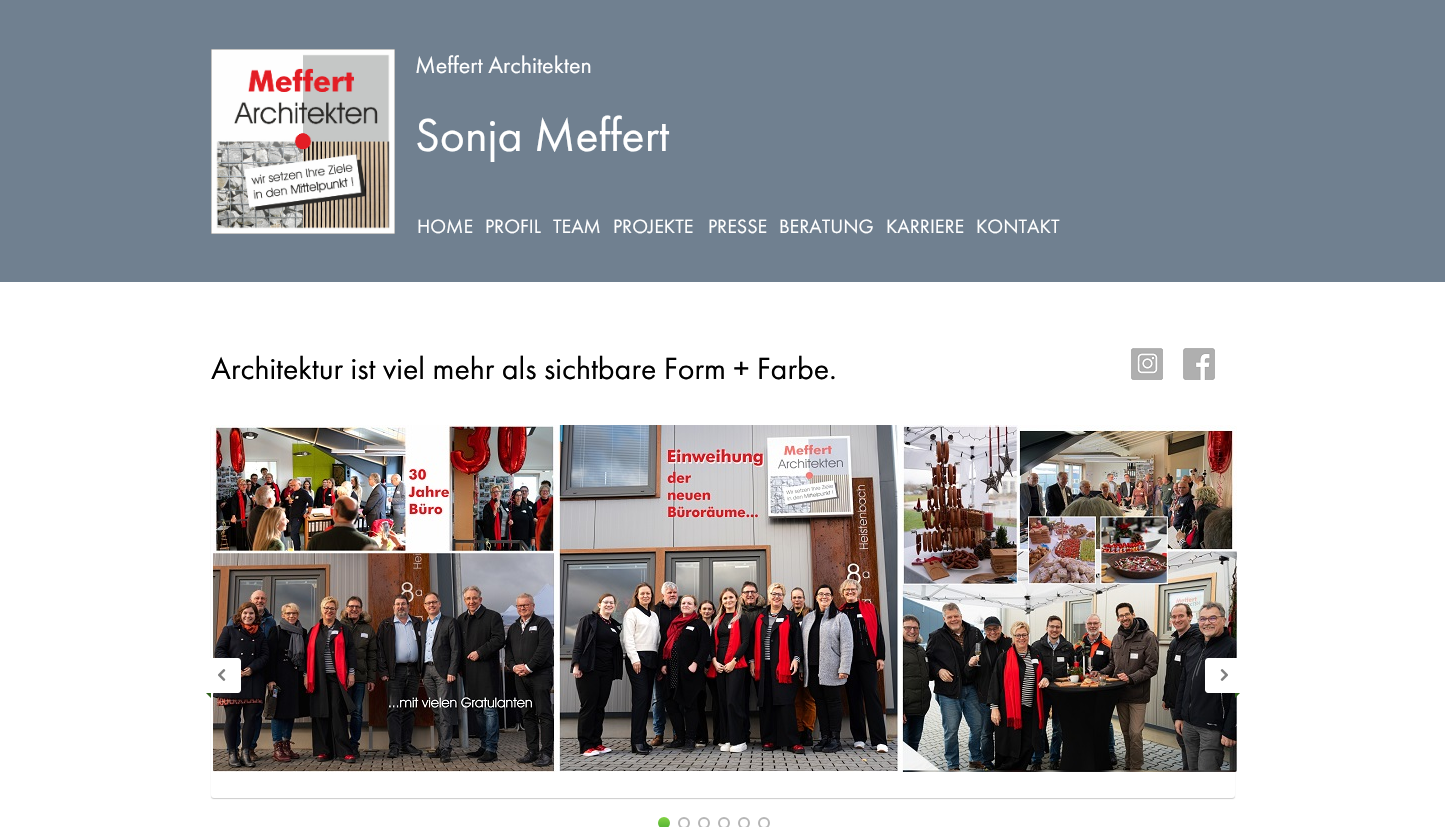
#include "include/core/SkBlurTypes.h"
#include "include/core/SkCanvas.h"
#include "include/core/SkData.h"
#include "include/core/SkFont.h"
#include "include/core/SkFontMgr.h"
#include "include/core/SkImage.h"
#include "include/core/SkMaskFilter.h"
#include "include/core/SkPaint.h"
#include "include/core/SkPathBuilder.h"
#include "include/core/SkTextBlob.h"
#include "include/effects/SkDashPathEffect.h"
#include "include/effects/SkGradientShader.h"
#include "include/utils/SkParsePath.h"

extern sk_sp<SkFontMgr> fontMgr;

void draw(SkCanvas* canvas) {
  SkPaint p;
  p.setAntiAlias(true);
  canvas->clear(SK_ColorWHITE);
  p.setColor(SkColorSetRGB(112, 128, 144));
  canvas->drawRect(SkRect::MakeLTRB(0, 0, 1445, 282), p);
  canvas->drawImageRect(SkImages::DeferredFromEncodedData(SkData::MakeFromFileName("images/1.png")), SkRect::MakeLTRB(211, 49, 395, 234), SkSamplingOptions());
  canvas->drawImageRect(SkImages::DeferredFromEncodedData(SkData::MakeFromFileName("images/2.png")), SkRect::MakeLTRB(1131, 348, 1163, 380), SkSamplingOptions());
  canvas->drawImageRect(SkImages::DeferredFromEncodedData(SkData::MakeFromFileName("images/3.png")), SkRect::MakeLTRB(1183, 348, 1215, 380), SkSamplingOptions());
  p.setColor(SkColorSetARGB(51, 0, 0, 0));
  p.setMaskFilter(SkMaskFilter::MakeBlur(kNormal_SkBlurStyle, 0.5f));
  canvas->drawRoundRect(SkRect::MakeLTRB(211, 426, 1235, 799), 3, 3, p);
  p.setMaskFilter(nullptr);
  p.setColor(SK_ColorWHITE);
  canvas->drawRoundRect(SkRect::MakeLTRB(211, 425, 1235, 798), 3, 3, p);
  canvas->drawImageRect(SkImages::DeferredFromEncodedData(SkData::MakeFromFileName("images/4.png")), SkRect::MakeLTRB(213, 425, 1237, 772), SkSamplingOptions());
  canvas->drawPath(SkPathBuilder().moveTo(206, 658).lineTo(238, 658).cubicTo(239.5f, 658, 241, 659.5f, 241, 661).lineTo(241, 690).cubicTo(241, 691.5f, 239.5f, 693, 238, 693).lineTo(206, 693).close().detach(), p);
  canvas->drawImageRect(SkImages::DeferredFromEncodedData(SkData::MakeFromFileName("images/5.png")), SkRect::MakeLTRB(218, 669, 226, 681), SkSamplingOptions());
  p.setColor(SkColorSetRGB(49, 97, 30));
  canvas->drawPath(SkPathBuilder().moveTo(211, 693).lineTo(211, 698).lineTo(206, 693).close().detach(), p);
  p.setColor(SK_ColorWHITE);
  canvas->drawPath(SkPathBuilder().moveTo(1208, 658).lineTo(1240, 658).lineTo(1240, 693).lineTo(1208, 693).cubicTo(1206.5f, 693, 1205, 691.5f, 1205, 690).lineTo(1205, 661).cubicTo(1205, 659.5f, 1206.5f, 658, 1208, 658).close().detach(), p);
  canvas->drawImageRect(SkImages::DeferredFromEncodedData(SkData::MakeFromFileName("images/6.png")), SkRect::MakeLTRB(1220, 669, 1228, 681), SkSamplingOptions());
  p.setColor(SkColorSetRGB(49, 97, 30));
  canvas->drawPath(SkPathBuilder().moveTo(1235, 698).lineTo(1235, 693).lineTo(1240, 693).close().detach(), p);
  {
    const SkColor colors[] = {SkColorSetRGB(130, 211, 68), SkColorSetRGB(81, 175, 52)};
    const float stops[] = {0, 1};
    const SkPoint ends[] = {{664, 817}, {664, 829}};
    p.setShader(SkGradientShader::MakeLinear(ends, colors, stops, 2, SkTileMode::kClamp));
    p.setAlpha(255);
  }
  canvas->drawCircle(664, 823, 6, p);
  p.setStyle(SkPaint::kStroke_Style);
  p.setStrokeWidth(2);
  p.setShader(nullptr);
  p.setColor(SkColorSetRGB(182, 182, 182));
  canvas->drawCircle(684, 823, 5, p);
  canvas->drawCircle(704, 823, 5, p);
  canvas->drawCircle(724, 823, 5, p);
  canvas->drawCircle(744, 823, 5, p);
  canvas->drawCircle(764, 823, 5, p);
  SkFont font1(fontMgr->matchFamilyStyle("Futura PT", SkFontStyle::Normal()), 24);
  font1.setSubpixel(true);
  p.setStyle(SkPaint::kFill_Style);
  p.setColor(SK_ColorWHITE);
  canvas->drawString("Meffert Architekten", 415, 73, font1, p);
  SkFont font2(fontMgr->matchFamilyStyle("Futura PT", SkFontStyle::Normal()), 48);
  font2.setSubpixel(true);
  canvas->drawString("Sonja Meffert", 415, 151, font2, p);
  SkFont font3(fontMgr->matchFamilyStyle("Futura PT", SkFontStyle::Normal()), 20);
  font3.setSubpixel(true);
  canvas->drawString("HOME", 417, 233, font3, p);
  canvas->drawString("PROFIL", 485, 233, font3, p);
  canvas->drawString("TEAM", 553, 233, font3, p);
  canvas->drawString("PROJEKTE", 613, 233, font3, p);
  canvas->drawString("PRESSE", 708, 233, font3, p);
  canvas->drawString("BERATUNG", 779, 233, font3, p);
  canvas->drawString("KARRIERE", 886, 233, font3, p);
  canvas->drawString("KONTAKT", 976, 233, font3, p);
  SkFont font4(fontMgr->matchFamilyStyle("Futura PT", SkFontStyle::Normal()), 32);
  font4.setSubpixel(true);
  p.setColor(SK_ColorBLACK);
  canvas->drawString("Architektur ist viel mehr als sichtbare Form + Farbe.", 211, 379, font4, p);
}
